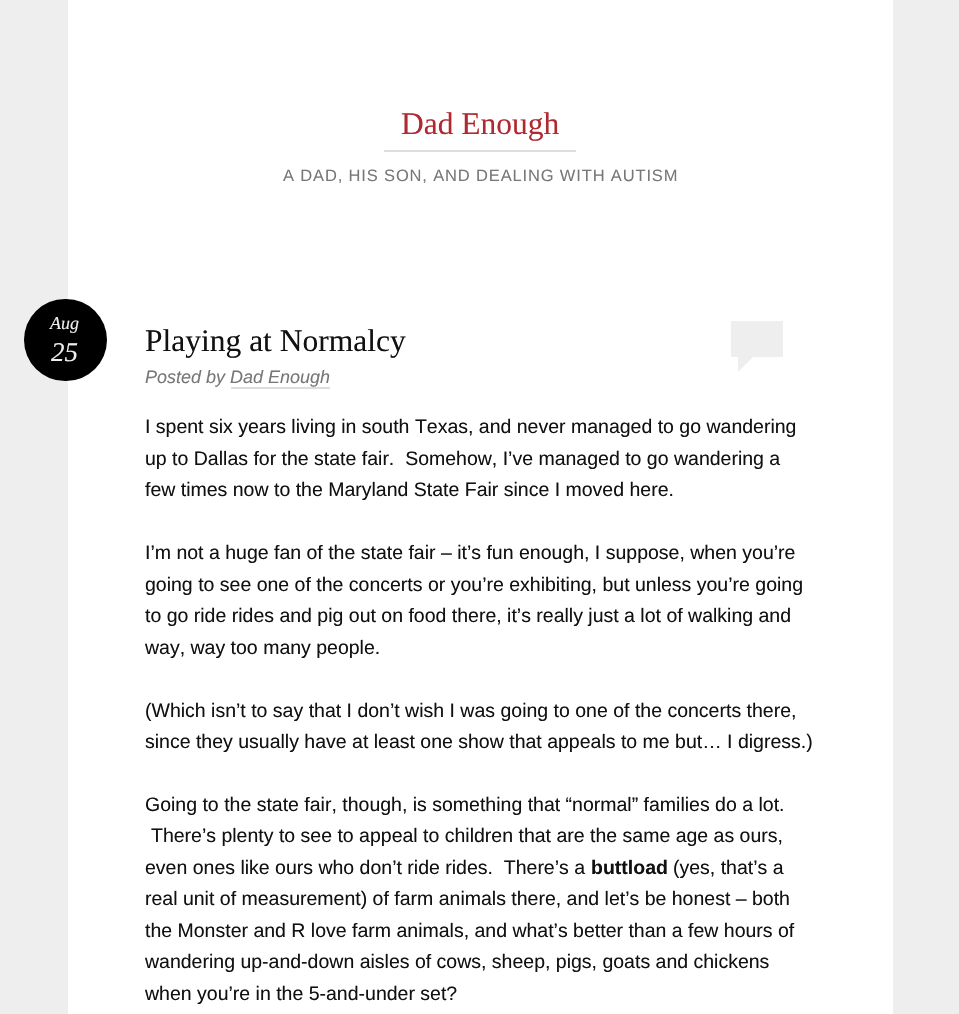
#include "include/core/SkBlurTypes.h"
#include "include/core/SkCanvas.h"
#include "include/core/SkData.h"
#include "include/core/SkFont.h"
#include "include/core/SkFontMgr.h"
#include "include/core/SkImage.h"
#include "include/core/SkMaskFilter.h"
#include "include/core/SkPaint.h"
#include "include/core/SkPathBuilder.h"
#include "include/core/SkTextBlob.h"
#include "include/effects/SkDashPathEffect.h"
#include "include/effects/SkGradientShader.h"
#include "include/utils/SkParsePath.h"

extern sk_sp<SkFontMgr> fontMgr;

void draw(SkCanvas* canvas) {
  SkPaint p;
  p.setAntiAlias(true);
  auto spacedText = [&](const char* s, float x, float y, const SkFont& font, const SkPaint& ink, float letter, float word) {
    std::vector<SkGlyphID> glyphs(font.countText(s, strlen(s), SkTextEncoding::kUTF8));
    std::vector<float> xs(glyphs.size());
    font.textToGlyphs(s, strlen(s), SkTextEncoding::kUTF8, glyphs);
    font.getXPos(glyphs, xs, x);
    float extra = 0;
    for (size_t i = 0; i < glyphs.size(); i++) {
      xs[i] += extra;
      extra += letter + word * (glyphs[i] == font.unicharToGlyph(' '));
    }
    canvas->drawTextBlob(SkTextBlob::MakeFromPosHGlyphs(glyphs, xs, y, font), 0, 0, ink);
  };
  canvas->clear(SkColorSetRGB(238, 238, 238));
  p.setColor(SK_ColorWHITE);
  canvas->drawRect(SkRect::MakeLTRB(68, 0, 893, 1014), p);
  p.setColor(SkColorSetRGB(221, 221, 221));
  canvas->drawRect(SkRect::MakeLTRB(384, 150, 576, 152), p);
  p.setColor(SK_ColorBLACK);
  canvas->drawRoundRect(SkRect::MakeLTRB(24, 299, 107, 381), 41, 41, p);
  p.setColor(SkColorSetRGB(238, 238, 238));
  canvas->drawRect(SkRect::MakeLTRB(731, 321, 783, 357), p);
  canvas->drawPath(SkPathBuilder().moveTo(738, 372).lineTo(738, 357).lineTo(753, 357).close().detach(), p);
  p.setColor(SkColorSetRGB(221, 221, 221));
  canvas->drawRect(SkRect::MakeLTRB(231, 387, 330, 389), p);
  SkFont font1(fontMgr->matchFamilyStyle("Liberation Serif", SkFontStyle::Normal()), 31.5f);
  font1.setSubpixel(true);
  p.setColor(SkColorSetRGB(177, 41, 48));
  canvas->drawString("Dad Enough", 401, 134, font1, p);
  SkFont font2(fontMgr->matchFamilyStyle("Liberation Sans", SkFontStyle::Normal()), 16.5f);
  font2.setSubpixel(true);
  p.setColor(SkColorSetRGB(119, 119, 119));
  spacedText("A DAD, HIS SON, AND DEALING WITH AUTISM", 283, 181, font2, p, 0.85f, 0);
  SkFont font3(fontMgr->matchFamilyStyle("Liberation Serif", SkFontStyle::Italic()), 18);
  font3.setSubpixel(true);
  p.setColor(SkColorSetRGB(238, 238, 238));
  canvas->drawString("Aug", 50, 329, font3, p);
  SkFont font4(fontMgr->matchFamilyStyle("Liberation Serif", SkFontStyle::Italic()), 27);
  font4.setSubpixel(true);
  canvas->drawString("25", 51, 361, font4, p);
  p.setColor(SkColorSetRGB(17, 17, 17));
  canvas->drawString("Playing at Normalcy", 145, 351, font1, p);
  SkFont font5(fontMgr->matchFamilyStyle("Liberation Sans", SkFontStyle::Italic()), 18);
  font5.setSubpixel(true);
  p.setColor(SkColorSetRGB(119, 119, 119));
  canvas->drawString("Posted by Dad Enough", 145, 383, font5, p);
  SkFont font6(fontMgr->matchFamilyStyle("Liberation Sans", SkFontStyle::Normal()), 19.5f);
  font6.setSubpixel(true);
  p.setColor(SkColorSetRGB(17, 17, 17));
  canvas->drawString("I spent six years living in south Texas, and never managed to go wandering", 145, 433, font6, p);
  canvas->drawString("up to Dallas for the state fair.  Somehow, I’ve managed to go wandering a", 145, 465, font6, p);
  canvas->drawString("few times now to the Maryland State Fair since I moved here.", 145, 496, font6, p);
  canvas->drawString("I’m not a huge fan of the state fair – it’s fun enough, I suppose, when you’re", 145, 559, font6, p);
  canvas->drawString("going to see one of the concerts or you’re exhibiting, but unless you’re going", 145, 591, font6, p);
  canvas->drawString("to go ride rides and pig out on food there, it’s really just a lot of walking and", 145, 622, font6, p);
  canvas->drawString("way, way too many people.", 145, 654, font6, p);
  canvas->drawString("(Which isn’t to say that I don’t wish I was going to one of the concerts there,", 145, 717, font6, p);
  canvas->drawString("since they usually have at least one show that appeals to me but… I digress.)", 145, 748, font6, p);
  canvas->drawString("Going to the state fair, though, is something that “normal” families do a lot.", 145, 811, font6, p);
  canvas->drawString("There’s plenty to see to appeal to children that are the same age as ours,", 151, 842, font6, p);
  canvas->drawString("even ones like ours who don’t ride rides.  There’s a", 145, 874, font6, p);
  SkFont font7(fontMgr->matchFamilyStyle("Liberation Sans", SkFontStyle::Bold()), 19.5f);
  font7.setSubpixel(true);
  canvas->drawString("buttload", 591, 874, font7, p);
  canvas->drawString("(yes, that’s a", 673, 874, font6, p);
  canvas->drawString("real unit of measurement) of farm animals there, and let’s be honest – both", 145, 905, font6, p);
  canvas->drawString("the Monster and R love farm animals, and what’s better than a few hours of", 145, 937, font6, p);
  canvas->drawString("wandering up-and-down aisles of cows, sheep, pigs, goats and chickens", 145, 968, font6, p);
  canvas->drawString("when you’re in the 5-and-under set?", 145, 1000, font6, p);
}
